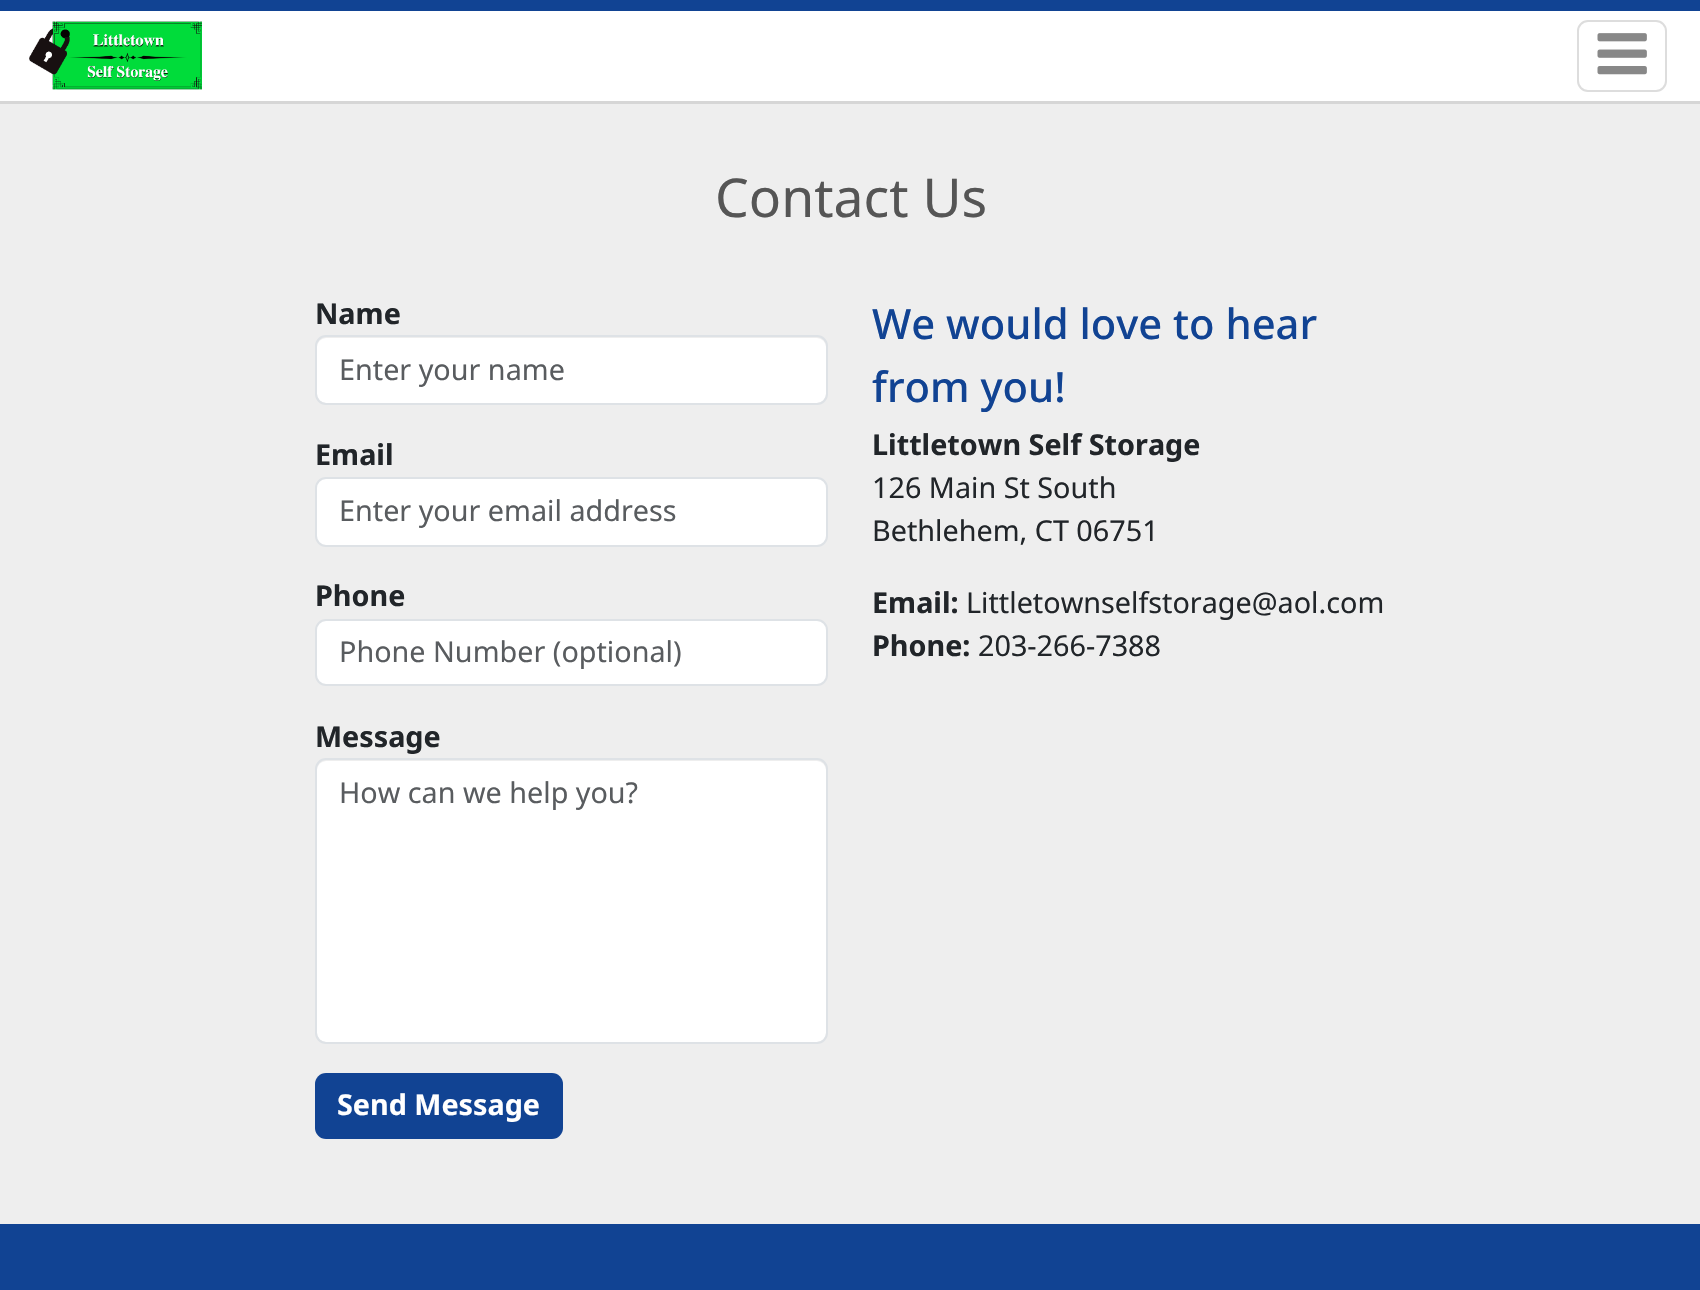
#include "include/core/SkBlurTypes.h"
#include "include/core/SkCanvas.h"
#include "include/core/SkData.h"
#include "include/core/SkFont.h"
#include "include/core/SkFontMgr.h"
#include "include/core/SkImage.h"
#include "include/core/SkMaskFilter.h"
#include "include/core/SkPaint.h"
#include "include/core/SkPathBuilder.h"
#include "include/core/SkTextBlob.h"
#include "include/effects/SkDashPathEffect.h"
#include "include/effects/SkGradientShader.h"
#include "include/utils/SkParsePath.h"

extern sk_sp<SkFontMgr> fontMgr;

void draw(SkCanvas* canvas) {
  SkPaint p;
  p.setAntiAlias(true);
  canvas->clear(SkColorSetRGB(238, 238, 238));
  p.setColor(SkColorSetRGB(214, 214, 214));
  canvas->drawRect(SkRect::MakeLTRB(0, 101, 1700, 104), p);
  p.setColor(SK_ColorWHITE);
  canvas->drawRect(SkRect::MakeLTRB(0, 11, 1700, 101), p);
  p.setColor(SkColorSetRGB(17, 67, 147));
  canvas->drawRect(SkRect::MakeLTRB(0, 0, 1700, 11), p);
  canvas->drawImageRect(SkImages::DeferredFromEncodedData(SkData::MakeFromFileName("images/1.png")), SkRect::MakeLTRB(29, 21, 202, 90), SkSamplingOptions());
  p.setStyle(SkPaint::kStroke_Style);
  p.setStrokeWidth(2);
  p.setColor(SkColorSetRGB(221, 221, 221));
  canvas->drawRoundRect(SkRect::MakeLTRB(1578, 21, 1666, 91), 10, 10, p);
  canvas->drawImageRect(SkImages::DeferredFromEncodedData(SkData::MakeFromFileName("images/2.png")), SkRect::MakeLTRB(1597, 33, 1647, 75), SkSamplingOptions());
  p.setStyle(SkPaint::kFill_Style);
  p.setColor(SK_ColorWHITE);
  canvas->drawRoundRect(SkRect::MakeLTRB(317, 338, 826, 403), 9, 9, p);
  p.setStyle(SkPaint::kStroke_Style);
  p.setColor(SkColorSetRGB(222, 226, 230));
  canvas->drawRoundRect(SkRect::MakeLTRB(316, 336, 827, 404), 10, 10, p);
  p.setStyle(SkPaint::kFill_Style);
  p.setColor(SK_ColorWHITE);
  canvas->drawRoundRect(SkRect::MakeLTRB(316, 478, 827, 546), 10, 10, p);
  p.setStyle(SkPaint::kStroke_Style);
  p.setColor(SkColorSetRGB(222, 226, 230));
  canvas->drawRoundRect(SkRect::MakeLTRB(316, 478, 827, 546), 10, 10, p);
  p.setStyle(SkPaint::kFill_Style);
  p.setColor(SK_ColorWHITE);
  canvas->drawRoundRect(SkRect::MakeLTRB(316, 620, 827, 685), 10, 10, p);
  p.setStyle(SkPaint::kStroke_Style);
  p.setColor(SkColorSetRGB(222, 226, 230));
  canvas->drawRoundRect(SkRect::MakeLTRB(316, 620, 827, 685), 10, 10, p);
  p.setStyle(SkPaint::kFill_Style);
  p.setColor(SK_ColorWHITE);
  canvas->drawRoundRect(SkRect::MakeLTRB(317, 761, 826, 1042), 9, 9, p);
  p.setStyle(SkPaint::kStroke_Style);
  p.setColor(SkColorSetRGB(222, 226, 230));
  canvas->drawRoundRect(SkRect::MakeLTRB(316, 759, 827, 1043), 10, 10, p);
  p.setStyle(SkPaint::kFill_Style);
  p.setColor(SkColorSetRGB(17, 67, 147));
  canvas->drawRoundRect(SkRect::MakeLTRB(315, 1073, 563, 1139), 11, 11, p);
  canvas->drawRect(SkRect::MakeLTRB(0, 1224, 1700, 1290), p);
  SkFont font1(fontMgr->matchFamilyStyle("Noto Sans", SkFontStyle::Normal()), 53.5f);
  font1.setSubpixel(true);
  p.setColor(SkColorSetRGB(85, 85, 85));
  canvas->drawString("Contact Us", 715, 217, font1, p);
  SkFont font2(fontMgr->matchFamilyStyle("Noto Sans", SkFontStyle::Bold()), 28.75f);
  font2.setSubpixel(true);
  p.setColor(SkColorSetRGB(33, 37, 41));
  canvas->drawString("Name", 315, 324, font2, p);
  SkFont font3(fontMgr->matchFamilyStyle("Noto Sans", SkFontStyle::Normal()), 28.75f);
  font3.setSubpixel(true);
  p.setColor(SkColorSetRGB(89, 92, 95));
  canvas->drawString("Enter your name", 339, 380, font3, p);
  p.setColor(SkColorSetRGB(33, 37, 41));
  canvas->drawString("Email", 315, 465, font2, p);
  p.setColor(SkColorSetRGB(89, 92, 95));
  canvas->drawString("Enter your email address", 339, 521, font3, p);
  p.setColor(SkColorSetRGB(33, 37, 41));
  canvas->drawString("Phone", 315, 606, font2, p);
  p.setColor(SkColorSetRGB(89, 92, 95));
  canvas->drawString("Phone Number (optional)", 339, 662, font3, p);
  p.setColor(SkColorSetRGB(33, 37, 41));
  canvas->drawString("Message", 315, 747, font2, p);
  p.setColor(SkColorSetRGB(89, 92, 95));
  canvas->drawString("How can we help you?", 339, 803, font3, p);
  p.setColor(SK_ColorWHITE);
  canvas->drawString("Send Message", 337, 1115, font2, p);
  SkFont font4(fontMgr->matchFamilyStyle("Noto Sans", SkFontStyle(500, SkFontStyle::kNormal_Width, SkFontStyle::kUpright_Slant)), 41.75f);
  font4.setSubpixel(true);
  p.setColor(SkColorSetRGB(17, 67, 147));
  canvas->drawString("We would love to hear", 872, 339, font4, p);
  canvas->drawString("from you!", 872, 402, font4, p);
  p.setColor(SkColorSetRGB(33, 37, 41));
  canvas->drawString("Littletown Self Storage", 872, 455, font2, p);
  canvas->drawString("126 Main St South", 872, 498, font3, p);
  canvas->drawString("Bethlehem, CT 06751", 872, 541, font3, p);
  canvas->drawString("Email:", 872, 613, font2, p);
  canvas->drawString("Littletownselfstorage@aol.com", 966, 613, font3, p);
  canvas->drawString("Phone:", 872, 656, font2, p);
  canvas->drawString("203-266-7388", 978, 656, font3, p);
}
